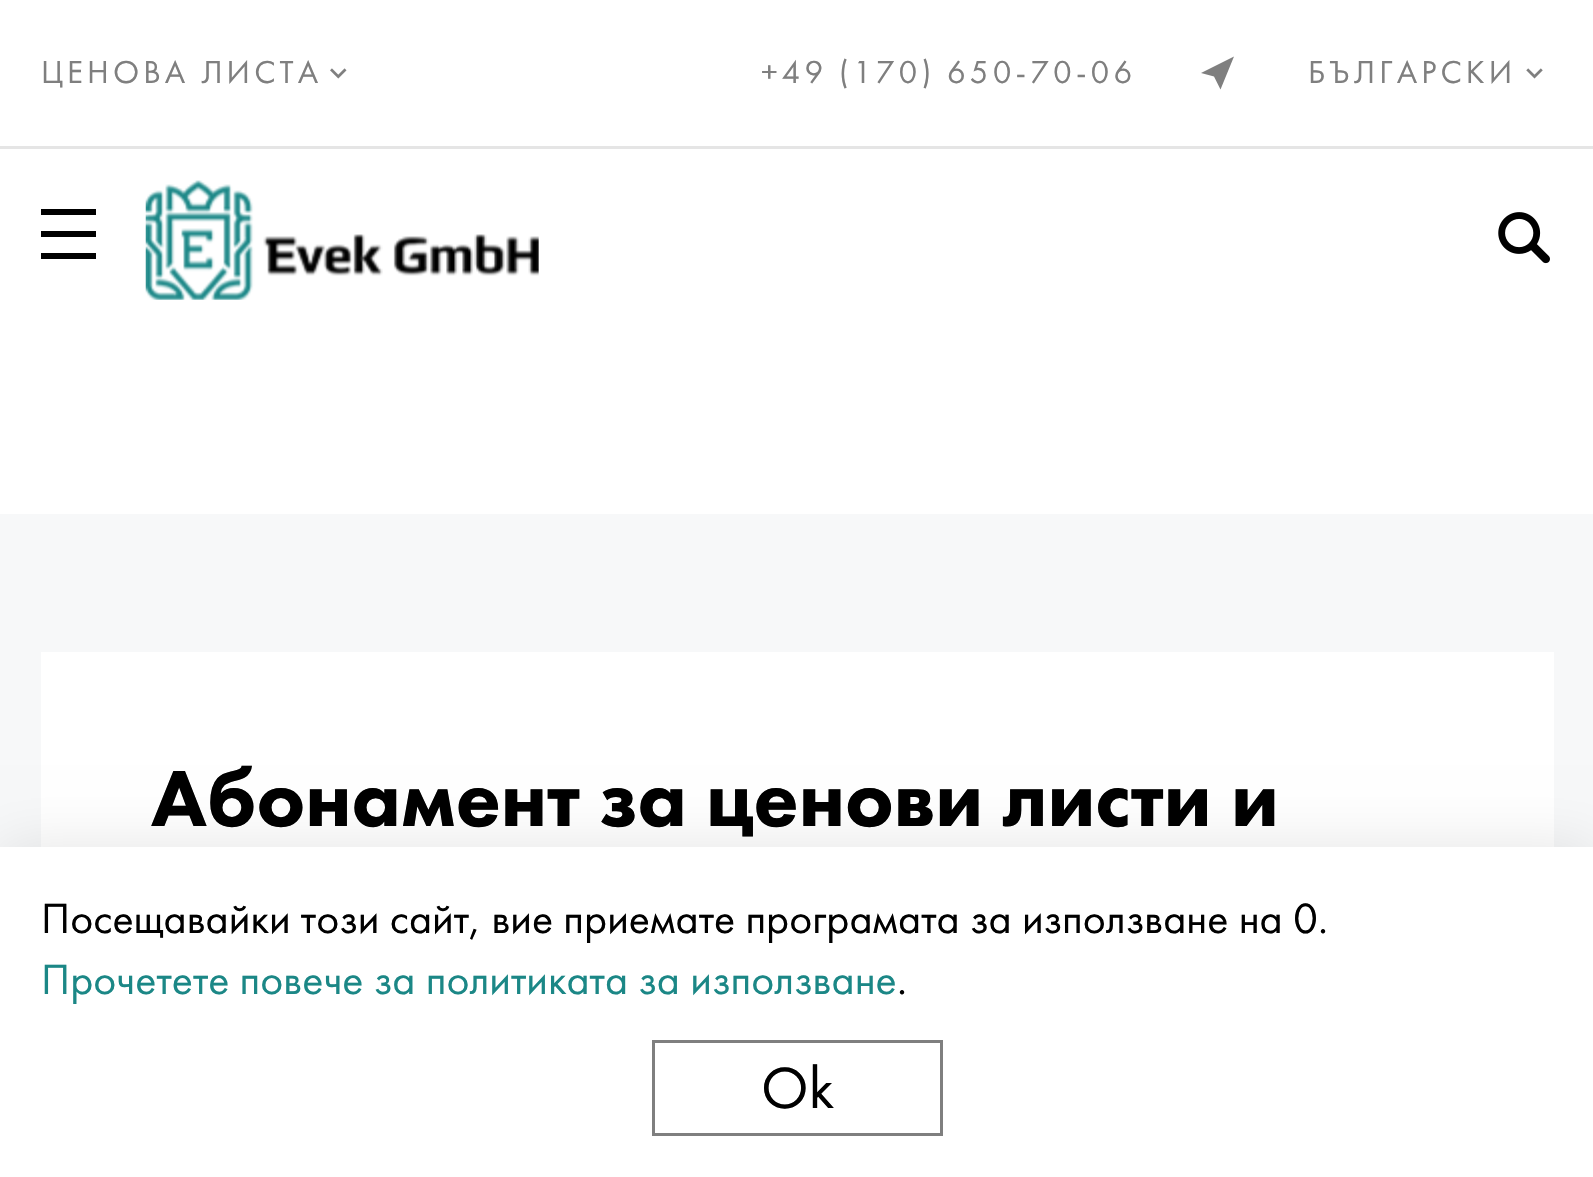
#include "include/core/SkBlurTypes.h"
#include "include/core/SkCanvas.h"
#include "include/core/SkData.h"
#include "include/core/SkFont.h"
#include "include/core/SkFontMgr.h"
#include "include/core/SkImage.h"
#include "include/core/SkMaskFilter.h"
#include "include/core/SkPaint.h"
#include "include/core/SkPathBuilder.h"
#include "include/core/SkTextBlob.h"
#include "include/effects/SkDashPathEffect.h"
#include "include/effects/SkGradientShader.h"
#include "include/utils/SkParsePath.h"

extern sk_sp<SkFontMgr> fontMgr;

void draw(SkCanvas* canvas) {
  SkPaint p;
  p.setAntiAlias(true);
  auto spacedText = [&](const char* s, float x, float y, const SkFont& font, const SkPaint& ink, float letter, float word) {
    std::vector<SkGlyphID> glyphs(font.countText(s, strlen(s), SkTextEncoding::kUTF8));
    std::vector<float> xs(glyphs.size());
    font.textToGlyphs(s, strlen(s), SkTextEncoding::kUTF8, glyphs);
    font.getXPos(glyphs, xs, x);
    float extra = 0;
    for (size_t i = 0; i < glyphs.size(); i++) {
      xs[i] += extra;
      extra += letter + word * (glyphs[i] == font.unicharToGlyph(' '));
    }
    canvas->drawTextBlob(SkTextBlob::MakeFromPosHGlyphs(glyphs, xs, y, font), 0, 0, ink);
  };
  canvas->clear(SK_ColorWHITE);
  canvas->drawImageRect(SkImages::DeferredFromEncodedData(SkData::MakeFromFileName("images/1.png")), SkRect::MakeLTRB(330, 68, 347, 79), SkSamplingOptions());
  p.setColor(SkColorSetRGB(127, 127, 127));
  canvas->drawPath(SkPathBuilder().moveTo(1234, 56.5f).lineTo(1220.5f, 89.5f).lineTo(1214, 76.5f).lineTo(1201, 73).close().detach(), p);
  canvas->drawImageRect(SkImages::DeferredFromEncodedData(SkData::MakeFromFileName("images/2.png")), SkRect::MakeLTRB(1526, 68, 1543, 79), SkSamplingOptions());
  p.setColor(SkColorSetRGB(229, 229, 229));
  canvas->drawRect(SkRect::MakeLTRB(0, 146, 1593, 149), p);
  p.setColor(SK_ColorBLACK);
  canvas->drawRect(SkRect::MakeLTRB(41, 209, 96, 215), p);
  canvas->drawRect(SkRect::MakeLTRB(41, 231, 96, 237), p);
  canvas->drawRect(SkRect::MakeLTRB(41, 253, 96, 259), p);
  canvas->drawImageRect(SkImages::DeferredFromEncodedData(SkData::MakeFromFileName("images/3.png")), SkRect::MakeLTRB(145, 180, 539, 300), SkSamplingOptions());
  canvas->drawImageRect(SkImages::DeferredFromEncodedData(SkData::MakeFromFileName("images/4.png")), SkRect::MakeLTRB(1498, 212, 1550, 264), SkSamplingOptions());
  p.setColor(SkColorSetRGB(247, 248, 249));
  canvas->drawRect(SkRect::MakeLTRB(0, 514, 1593, 847), p);
  p.setColor(SK_ColorWHITE);
  canvas->drawRect(SkRect::MakeLTRB(41, 652, 1554, 847), p);
  p.setColor(SkColorSetARGB(26, 0, 0, 0));
  p.setMaskFilter(SkMaskFilter::MakeBlur(kNormal_SkBlurStyle, 27.5f));
  canvas->drawRect(SkRect::MakeLTRB(0, 847, 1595, 1177), p);
  p.setMaskFilter(nullptr);
  p.setColor(SK_ColorWHITE);
  canvas->drawRect(SkRect::MakeLTRB(0, 847, 1593, 1177), p);
  p.setStyle(SkPaint::kStroke_Style);
  p.setStrokeWidth(3);
  p.setColor(SkColorSetRGB(127, 127, 127));
  canvas->drawRect(SkRect::MakeLTRB(653.5f, 1041.5f, 941.5f, 1134.5f), p);
  SkFont font1(fontMgr->matchFamilyStyle("Futura PT", SkFontStyle::Normal()), 33);
  font1.setSubpixel(true);
  p.setStyle(SkPaint::kFill_Style);
  spacedText("ЦЕНОВА ЛИСТА", 41, 83, font1, p, 4.1f, 0);
  spacedText("+49 (170) 650-70-06", 761, 83, font1, p, 4.1f, 0);
  spacedText("БЪЛГАРСКИ", 1308, 83, font1, p, 4.1f, 0);
  SkFont font2(fontMgr->matchFamilyStyle("Futura PT", SkFontStyle(900, SkFontStyle::kNormal_Width, SkFontStyle::kUpright_Slant)), 82.5f);
  font2.setSubpixel(true);
  p.setColor(SK_ColorBLACK);
  canvas->drawString("Абонамент за ценови листи и", 151, 826, font2, p);
  SkFont font3(fontMgr->matchFamilyStyle("Futura PT", SkFontStyle::Normal()), 44);
  font3.setSubpixel(true);
  canvas->drawString("Посещавайки този сайт, вие приемате програмата за използване на 0.", 41, 933, font3, p);
  p.setColor(SkColorSetRGB(27, 135, 134));
  canvas->drawString("Прочетете повече за политиката за използване", 41, 994, font3, p);
  p.setColor(SK_ColorBLACK);
  canvas->drawString(".", 897, 994, font3, p);
  SkFont font4(fontMgr->matchFamilyStyle("Futura PT", SkFontStyle::Normal()), 60);
  font4.setSubpixel(true);
  canvas->drawString("Ok", 761, 1108, font4, p);
}
